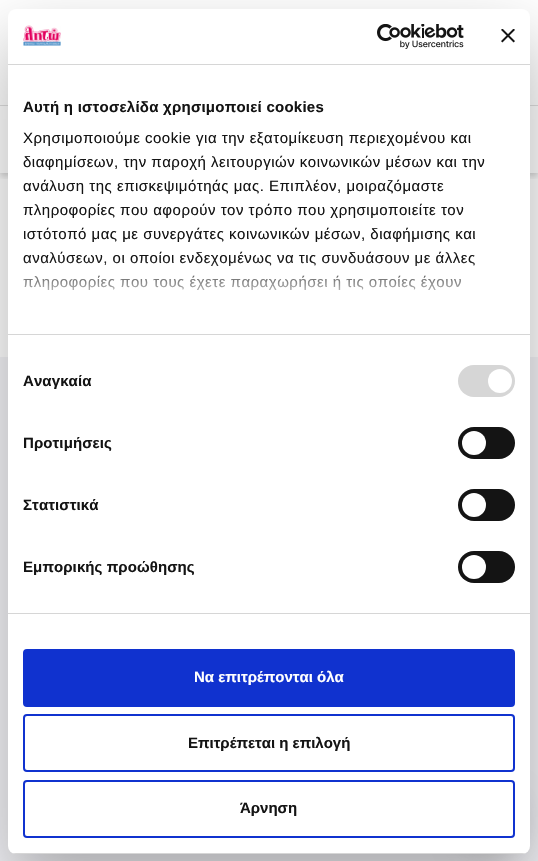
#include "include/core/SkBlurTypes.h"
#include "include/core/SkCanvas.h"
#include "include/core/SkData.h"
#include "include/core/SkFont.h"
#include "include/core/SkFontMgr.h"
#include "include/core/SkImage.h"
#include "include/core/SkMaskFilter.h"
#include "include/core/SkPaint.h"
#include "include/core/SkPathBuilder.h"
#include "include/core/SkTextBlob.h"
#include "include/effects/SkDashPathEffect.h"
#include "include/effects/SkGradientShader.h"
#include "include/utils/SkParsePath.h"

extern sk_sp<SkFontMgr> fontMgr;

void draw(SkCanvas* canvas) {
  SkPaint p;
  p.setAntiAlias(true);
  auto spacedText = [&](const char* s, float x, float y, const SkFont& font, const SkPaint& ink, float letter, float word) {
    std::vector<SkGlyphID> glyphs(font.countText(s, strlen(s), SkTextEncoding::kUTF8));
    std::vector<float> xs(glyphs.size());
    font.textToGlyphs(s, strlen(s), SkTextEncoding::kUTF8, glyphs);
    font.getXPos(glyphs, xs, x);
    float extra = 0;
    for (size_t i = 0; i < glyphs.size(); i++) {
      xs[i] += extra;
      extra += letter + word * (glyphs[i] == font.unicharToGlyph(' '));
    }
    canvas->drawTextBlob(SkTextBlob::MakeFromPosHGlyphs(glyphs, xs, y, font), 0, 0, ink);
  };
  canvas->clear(SkColorSetRGB(243, 243, 247));
  p.setColor(SK_ColorWHITE);
  canvas->drawRect(SkRect::MakeLTRB(0, 0, 538, 357), p);
  canvas->save();
  canvas->clipRect(SkRect::MakeLTRB(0, 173, 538, 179));
  p.setColor(SkColorSetARGB(41, 0, 0, 0));
  p.setMaskFilter(SkMaskFilter::MakeBlur(kNormal_SkBlurStyle, 3));
  canvas->drawRect(SkRect::MakeLTRB(0, 3, 538, 176), p);
  p.setMaskFilter(nullptr);
  canvas->restore();
  p.setColor(SkColorSetRGB(223, 223, 223));
  canvas->drawRect(SkRect::MakeLTRB(0, 105, 538, 106), p);
  p.setColor(SkColorSetARGB(41, 0, 0, 0));
  p.setMaskFilter(SkMaskFilter::MakeBlur(kNormal_SkBlurStyle, 15));
  canvas->drawRoundRect(SkRect::MakeLTRB(460, 793, 518, 851), 29, 29, p);
  p.setMaskFilter(nullptr);
  p.setColor(SkColorSetARGB(77, 0, 0, 0));
  p.setMaskFilter(SkMaskFilter::MakeBlur(kNormal_SkBlurStyle, 34));
  canvas->drawRoundRect(SkRect::MakeLTRB(8, 41, 530, 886), 8, 8, p);
  p.setMaskFilter(nullptr);
  p.setColor(SK_ColorWHITE);
  canvas->drawRoundRect(SkRect::MakeLTRB(8, 9, 530, 854), 8, 8, p);
  p.setColor(SkColorSetRGB(214, 214, 214));
  canvas->drawRect(SkRect::MakeLTRB(8, 64, 530, 65), p);
  canvas->drawImageRect(SkImages::DeferredFromEncodedData(SkData::MakeFromFileName("images/1.png")), SkRect::MakeLTRB(23, 25, 61, 46), SkSamplingOptions());
  canvas->drawImageRect(SkImages::DeferredFromEncodedData(SkData::MakeFromFileName("images/2.png")), SkRect::MakeLTRB(377, 24, 464, 49), SkSamplingOptions());
  canvas->drawImageRect(SkImages::DeferredFromEncodedData(SkData::MakeFromFileName("images/3.png")), SkRect::MakeLTRB(501, 29, 515, 43), SkSamplingOptions());
  canvas->drawRect(SkRect::MakeLTRB(8, 334, 530, 335), p);
  canvas->drawRect(SkRect::MakeLTRB(8, 613, 530, 614), p);
  canvas->drawRoundRect(SkRect::MakeLTRB(458, 365, 515, 397), 16, 16, p);
  p.setColor(SK_ColorWHITE);
  canvas->drawCircle(500, 381, 12, p);
  p.setColor(SkColorSetRGB(20, 20, 20));
  canvas->drawRoundRect(SkRect::MakeLTRB(458, 427, 515, 459), 16, 16, p);
  p.setColor(SK_ColorWHITE);
  canvas->drawCircle(474, 443, 12, p);
  p.setColor(SkColorSetRGB(20, 20, 20));
  canvas->drawRoundRect(SkRect::MakeLTRB(458, 489, 515, 521), 16, 16, p);
  p.setColor(SK_ColorWHITE);
  canvas->drawCircle(474, 505, 12, p);
  p.setColor(SkColorSetRGB(20, 20, 20));
  canvas->drawRoundRect(SkRect::MakeLTRB(458, 551, 515, 583), 16, 16, p);
  p.setColor(SK_ColorWHITE);
  canvas->drawCircle(474, 567, 12, p);
  canvas->save();
  canvas->clipPath(SkPathBuilder().moveTo(16, 9).lineTo(522, 9).cubicTo(526.5f, 9, 530, 12.5f, 530, 17).lineTo(530, 846).cubicTo(530, 850.5f, 526.5f, 854, 522, 854).lineTo(16, 854).cubicTo(11.5f, 854, 8, 850.5f, 8, 846).lineTo(8, 17).cubicTo(8, 12.5f, 11.5f, 9, 16, 9).close().detach(), true);
  p.setColor(SkColorSetRGB(214, 214, 214));
  canvas->drawRect(SkRect::MakeLTRB(8, 853, 530, 854), p);
  canvas->restore();
  p.setColor(SkColorSetRGB(16, 50, 207));
  canvas->drawRoundRect(SkRect::MakeLTRB(24, 650, 514, 706), 3, 3, p);
  p.setStyle(SkPaint::kStroke_Style);
  p.setStrokeWidth(2);
  canvas->drawRoundRect(SkRect::MakeLTRB(24, 650, 514, 706), 3, 3, p);
  canvas->drawRoundRect(SkRect::MakeLTRB(24, 715, 514, 771), 3, 3, p);
  canvas->drawRoundRect(SkRect::MakeLTRB(24, 781, 514, 837), 3, 3, p);
  SkFont font1(fontMgr->matchFamilyStyle("Liberation Sans", SkFontStyle::Bold()), 15);
  font1.setSubpixel(true);
  p.setStyle(SkPaint::kFill_Style);
  p.setColor(SkColorSetRGB(20, 20, 20));
  spacedText("Αυτή η ιστοσελίδα χρησιμοποιεί cookies", 23, 112, font1, p, 0.25f, 0);
  SkFont font2(fontMgr->matchFamilyStyle("Liberation Sans", SkFontStyle::Normal()), 15);
  font2.setSubpixel(true);
  spacedText("Χρησιμοποιούμε cookie για την εξατομίκευση περιεχομένου και", 23, 143, font2, p, 0.5f, 0);
  spacedText("διαφημίσεων, την παροχή λειτουργιών κοινωνικών μέσων και την", 23, 167, font2, p, 0.5f, 0);
  spacedText("ανάλυση της επισκεψιμότηάς μας. Επιπλέον, μοιραζόμαστε", 23, 191, font2, p, 0.5f, 0);
  spacedText("πληροφορίες που αφορούν τον τρόπο που χρησιμοποιείτε τον", 23, 215, font2, p, 0.5f, 0);
  spacedText("ιστότοπό μας με συνεργάτες κοινωνικών μέσων, διαφήμισης και", 23, 239, font2, p, 0.5f, 0);
  spacedText("αναλύσεων, οι οποίοι ενδεχομένως να τις συνδυάσουν με άλλες", 23, 263, font2, p, 0.5f, 0);
  spacedText("πληροφορίες που τους έχετε παραχωρήσει ή τις οποίες έχουν", 23, 287, font2, p, 0.5f, 0);
  {
    const SkColor colors[] = {SK_ColorWHITE, SkColorSetARGB(204, 255, 255, 255), SkColorSetARGB(0, 255, 255, 255)};
    const float stops[] = {0, 0.5f, 1};
    const SkPoint ends[] = {{263, 334}, {263, 259}};
    p.setShader(SkGradientShader::MakeLinear(ends, colors, stops, 3, SkTileMode::kClamp));
    p.setAlpha(255);
  }
  canvas->drawRect(SkRect::MakeLTRB(23, 260, 475, 291), p);
  p.setShader(nullptr);
  p.setColor(SkColorSetRGB(20, 20, 20));
  spacedText("Αναγκαία", 23, 386, font1, p, 0.1f, 0);
  spacedText("Προτιμήσεις", 23, 448, font1, p, 0.1f, 0);
  spacedText("Στατιστικά", 23, 510, font1, p, 0.1f, 0);
  spacedText("Εμπορικής προώθησης", 23, 572, font1, p, 0.1f, 0);
  p.setColor(SK_ColorWHITE);
  canvas->drawString("Να επιτρέπονται όλα", 194, 682, font1, p);
  p.setColor(SkColorSetRGB(20, 20, 20));
  canvas->drawString("Επιτρέπεται η επιλογή", 188, 748, font1, p);
  canvas->drawString("Άρνηση", 240, 813, font1, p);
}
